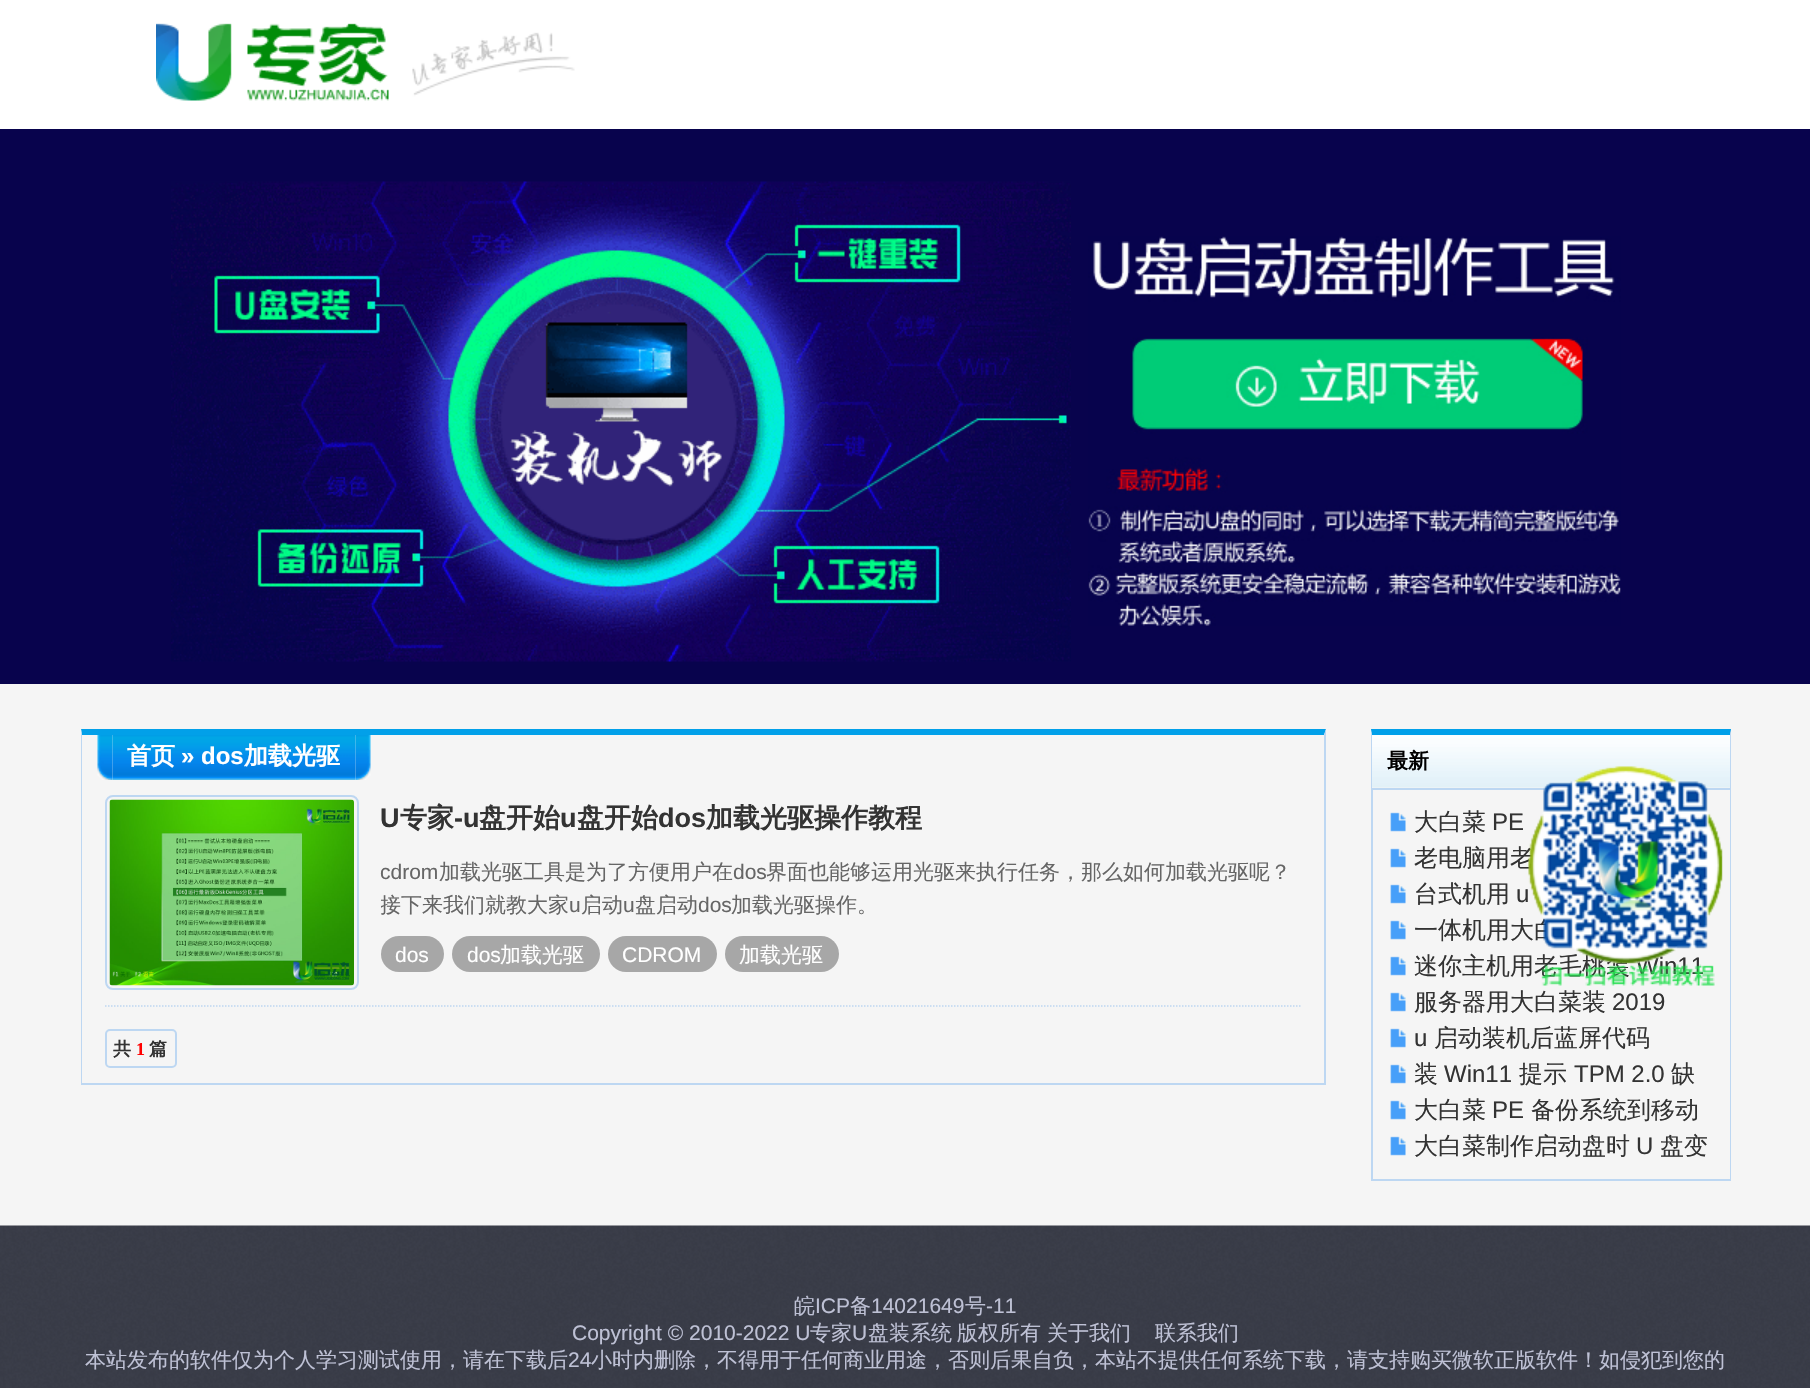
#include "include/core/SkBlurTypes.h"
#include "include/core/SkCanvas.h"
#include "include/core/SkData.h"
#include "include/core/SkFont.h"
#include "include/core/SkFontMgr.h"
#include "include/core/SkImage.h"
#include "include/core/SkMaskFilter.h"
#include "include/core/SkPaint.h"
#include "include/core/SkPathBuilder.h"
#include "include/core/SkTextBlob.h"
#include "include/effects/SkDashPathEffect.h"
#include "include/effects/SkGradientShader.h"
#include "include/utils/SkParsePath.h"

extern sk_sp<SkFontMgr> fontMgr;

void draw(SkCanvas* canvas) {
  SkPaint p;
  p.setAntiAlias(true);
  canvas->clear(SkColorSetRGB(245, 245, 245));
  p.setColor(SK_ColorWHITE);
  canvas->drawRect(SkRect::MakeLTRB(0, 0, 1810, 129), p);
  canvas->drawImageRect(SkImages::DeferredFromEncodedData(SkData::MakeFromFileName("images/1.png")), SkRect::MakeLTRB(156, 23, 575, 101), SkSamplingOptions());
  p.setColor(SkColorSetRGB(8, 3, 77));
  canvas->drawRect(SkRect::MakeLTRB(0, 129, 1810, 684), p);
  canvas->drawImageRect(SkImages::DeferredFromEncodedData(SkData::MakeFromFileName("images/2.png")), SkRect::MakeLTRB(171, 181, 1071, 662), SkSamplingOptions());
  canvas->drawImageRect(SkImages::DeferredFromEncodedData(SkData::MakeFromFileName("images/3.png")), SkRect::MakeLTRB(1088, 236, 1621, 626), SkSamplingOptions());
  p.setColor(SkColorSetRGB(2, 160, 233));
  canvas->drawPath(SkPathBuilder().moveTo(81, 729).lineTo(1326, 729).lineTo(1324, 735).lineTo(82, 735).close().detach(), p);
  p.setColor(SkColorSetRGB(189, 215, 242));
  canvas->drawPath(SkPathBuilder().moveTo(1326, 729).lineTo(1326, 1084).lineTo(1324, 1083).lineTo(1324, 735).close().detach(), p);
  canvas->drawRect(SkRect::MakeLTRB(81, 1083, 1326, 1085), p);
  canvas->drawPath(SkPathBuilder().moveTo(81, 1084).lineTo(81, 729).lineTo(82, 735).lineTo(82, 1083).close().detach(), p);
  canvas->drawImageRect(SkImages::DeferredFromEncodedData(SkData::MakeFromFileName("images/4.png")), SkRect::MakeLTRB(97, 735, 113, 780), SkSamplingOptions());
  canvas->drawImageRect(SkImages::DeferredFromEncodedData(SkData::MakeFromFileName("images/5.png")), SkRect::MakeLTRB(112, 735, 356, 780), SkSamplingOptions());
  canvas->drawImageRect(SkImages::DeferredFromEncodedData(SkData::MakeFromFileName("images/6.png")), SkRect::MakeLTRB(355, 735, 371, 780), SkSamplingOptions());
  p.setStyle(SkPaint::kStroke_Style);
  p.setStrokeWidth(1.5f);
  p.setPathEffect(SkDashPathEffect::Make({{1.5f, 1.5f}}, 0));
  canvas->drawPath(SkPathBuilder().moveTo(105, 1006).lineTo(1302, 1006).detach(), p);
  p.setPathEffect(nullptr);
  p.setStrokeWidth(2);
  canvas->drawRoundRect(SkRect::MakeLTRB(106, 796, 358, 989), 7, 7, p);
  canvas->drawImageRect(SkImages::DeferredFromEncodedData(SkData::MakeFromFileName("images/7.png")), SkRect::MakeLTRB(109, 799, 354, 986), SkSamplingOptions());
  p.setStyle(SkPaint::kFill_Style);
  p.setColor(SkColorSetRGB(167, 167, 167));
  canvas->drawRoundRect(SkRect::MakeLTRB(381, 936, 444, 972), 18, 18, p);
  canvas->drawRoundRect(SkRect::MakeLTRB(452, 936, 600, 972), 18, 18, p);
  canvas->drawRoundRect(SkRect::MakeLTRB(608, 936, 717, 972), 18, 18, p);
  canvas->drawRoundRect(SkRect::MakeLTRB(725, 936, 839, 972), 18, 18, p);
  p.setStyle(SkPaint::kStroke_Style);
  p.setColor(SkColorSetRGB(189, 215, 242));
  canvas->drawRoundRect(SkRect::MakeLTRB(106, 1030, 176, 1067), 4, 4, p);
  canvas->drawImageRect(SkImages::DeferredFromEncodedData(SkData::MakeFromFileName("images/8.png")), SkRect::MakeLTRB(1371, 729, 1731, 788), SkSamplingOptions());
  p.setStyle(SkPaint::kFill_Style);
  p.setColor(SkColorSetRGB(2, 160, 233));
  canvas->drawPath(SkPathBuilder().moveTo(1371, 729).lineTo(1731, 729).lineTo(1730, 735).lineTo(1372, 735).close().detach(), p);
  p.setColor(SkColorSetRGB(189, 215, 242));
  canvas->drawPath(SkPathBuilder().moveTo(1731, 729).lineTo(1731, 789).lineTo(1730, 788).lineTo(1730, 735).close().detach(), p);
  canvas->drawRect(SkRect::MakeLTRB(1371, 788, 1731, 790), p);
  canvas->drawPath(SkPathBuilder().moveTo(1371, 789).lineTo(1371, 729).lineTo(1372, 735).lineTo(1372, 788).close().detach(), p);
  canvas->drawRect(SkRect::MakeLTRB(1730, 789, 1731, 1181), p);
  canvas->drawRect(SkRect::MakeLTRB(1371, 1179, 1731, 1181), p);
  canvas->drawRect(SkRect::MakeLTRB(1371, 789, 1373, 1181), p);
  canvas->drawImageRect(SkImages::DeferredFromEncodedData(SkData::MakeFromFileName("images/9.png")), SkRect::MakeLTRB(1390, 812, 1406, 832), SkSamplingOptions());
  canvas->drawImageRect(SkImages::DeferredFromEncodedData(SkData::MakeFromFileName("images/9.png")), SkRect::MakeLTRB(1390, 848, 1406, 868), SkSamplingOptions());
  canvas->drawImageRect(SkImages::DeferredFromEncodedData(SkData::MakeFromFileName("images/9.png")), SkRect::MakeLTRB(1390, 884, 1406, 904), SkSamplingOptions());
  canvas->drawImageRect(SkImages::DeferredFromEncodedData(SkData::MakeFromFileName("images/9.png")), SkRect::MakeLTRB(1390, 920, 1406, 940), SkSamplingOptions());
  canvas->drawImageRect(SkImages::DeferredFromEncodedData(SkData::MakeFromFileName("images/9.png")), SkRect::MakeLTRB(1390, 956, 1406, 976), SkSamplingOptions());
  canvas->drawImageRect(SkImages::DeferredFromEncodedData(SkData::MakeFromFileName("images/9.png")), SkRect::MakeLTRB(1390, 992, 1406, 1012), SkSamplingOptions());
  canvas->drawImageRect(SkImages::DeferredFromEncodedData(SkData::MakeFromFileName("images/9.png")), SkRect::MakeLTRB(1390, 1028, 1406, 1048), SkSamplingOptions());
  canvas->drawImageRect(SkImages::DeferredFromEncodedData(SkData::MakeFromFileName("images/9.png")), SkRect::MakeLTRB(1390, 1064, 1406, 1084), SkSamplingOptions());
  canvas->drawImageRect(SkImages::DeferredFromEncodedData(SkData::MakeFromFileName("images/9.png")), SkRect::MakeLTRB(1390, 1100, 1406, 1120), SkSamplingOptions());
  canvas->drawImageRect(SkImages::DeferredFromEncodedData(SkData::MakeFromFileName("images/9.png")), SkRect::MakeLTRB(1390, 1136, 1406, 1156), SkSamplingOptions());
  canvas->drawImageRect(SkImages::DeferredFromEncodedData(SkData::MakeFromFileName("images/11.png")), SkRect::MakeLTRB(0, 1225, 1810, 1388), SkSamplingOptions());
  SkFont font1(fontMgr->matchFamilyStyle("WenQuanYi Zen Hei", SkFontStyle::Bold()), 24);
  font1.setSubpixel(true);
  p.setColor(SK_ColorWHITE);
  canvas->drawString("首页", 127, 764, font1, p);
  SkFont font2(fontMgr->matchFamilyStyle("Liberation Sans", SkFontStyle::Bold()), 24);
  font2.setSubpixel(true);
  canvas->drawString("» dos", 181, 764, font2, p);
  canvas->drawString("加载光驱", 244, 764, font1, p);
  SkFont font3(fontMgr->matchFamilyStyle("Liberation Sans", SkFontStyle::Bold()), 27);
  font3.setSubpixel(true);
  p.setColor(SkColorSetRGB(51, 51, 51));
  canvas->drawString("U", 380, 827, font3, p);
  SkFont font4(fontMgr->matchFamilyStyle("WenQuanYi Zen Hei", SkFontStyle::Bold()), 27);
  font4.setSubpixel(true);
  canvas->drawString("专家", 400, 827, font4, p);
  canvas->drawString("-u", 454, 827, font3, p);
  canvas->drawString("盘开始", 479, 827, font4, p);
  canvas->drawString("u", 560, 827, font3, p);
  canvas->drawString("盘开始", 577, 827, font4, p);
  canvas->drawString("dos", 658, 827, font3, p);
  canvas->drawString("加载光驱操作教程", 706, 827, font4, p);
  SkFont font5(fontMgr->matchFamilyStyle("Liberation Sans", SkFontStyle::Normal()), 21);
  font5.setSubpixel(true);
  p.setColor(SkColorSetRGB(102, 102, 102));
  canvas->drawString("cdrom", 380, 879, font5, p);
  SkFont font6(fontMgr->matchFamilyStyle("WenQuanYi Zen Hei", SkFontStyle(500, SkFontStyle::kNormal_Width, SkFontStyle::kUpright_Slant)), 21);
  font6.setSubpixel(true);
  canvas->drawString("加载光驱工具是为了方便用户在", 439, 879, font6, p);
  canvas->drawString("dos", 733, 879, font5, p);
  canvas->drawString("界面也能够运用光驱来执行任务，那么如何加载光驱呢？", 766, 879, font6, p);
  canvas->save();
  canvas->clipRect(SkRect::MakeLTRB(381, 840, 1302, 921));
  canvas->drawString("接下来我们就教大家", 380, 912, font6, p);
  canvas->restore();
  canvas->drawString("u", 569, 912, font5, p);
  canvas->drawString("启动", 581, 912, font6, p);
  canvas->drawString("u", 623, 912, font5, p);
  canvas->drawString("盘启动", 635, 912, font6, p);
  canvas->drawString("dos", 698, 912, font5, p);
  canvas->drawString("加载光驱操作。", 731, 912, font6, p);
  p.setColor(SK_ColorWHITE);
  canvas->drawString("dos", 395, 962, font5, p);
  canvas->drawString("dos", 467, 962, font5, p);
  canvas->drawString("加载光驱", 500, 962, font6, p);
  canvas->drawString("CDROM", 622, 962, font5, p);
  canvas->drawString("加载光驱", 739, 962, font6, p);
  SkFont font7(fontMgr->matchFamilyStyle("WenQuanYi Zen Hei", SkFontStyle::Bold()), 18);
  font7.setSubpixel(true);
  p.setColor(SkColorSetRGB(51, 51, 51));
  canvas->drawString("共", 113, 1055, font7, p);
  SkFont font8(fontMgr->matchFamilyStyle("Liberation Serif", SkFontStyle::Bold()), 18);
  font8.setSubpixel(true);
  p.setColor(SkColorSetRGB(255, 0, 0));
  canvas->drawString("1", 136, 1055, font8, p);
  p.setColor(SkColorSetRGB(51, 51, 51));
  canvas->drawString("篇", 149, 1055, font7, p);
  SkFont font9(fontMgr->matchFamilyStyle("WenQuanYi Zen Hei", SkFontStyle::Bold()), 21);
  font9.setSubpixel(true);
  p.setColor(SK_ColorBLACK);
  canvas->drawString("最新", 1387, 768, font9, p);
  SkFont font10(fontMgr->matchFamilyStyle("WenQuanYi Zen Hei", SkFontStyle(500, SkFontStyle::kNormal_Width, SkFontStyle::kUpright_Slant)), 24);
  font10.setSubpixel(true);
  p.setColor(SkColorSetRGB(51, 51, 51));
  canvas->drawString("大白菜", 1414, 830, font10, p);
  SkFont font11(fontMgr->matchFamilyStyle("Liberation Sans", SkFontStyle::Normal()), 24);
  font11.setSubpixel(true);
  canvas->drawString("PE", 1492, 830, font11, p);
  canvas->drawString("老电脑用老", 1414, 866, font10, p);
  canvas->drawString("台式机用", 1414, 902, font10, p);
  canvas->drawString("u", 1516, 902, font11, p);
  canvas->drawString("一体机用大白", 1414, 938, font10, p);
  canvas->drawString("迷你主机用老毛桃装", 1414, 974, font10, p);
  canvas->drawString("Win11", 1636, 974, font11, p);
  canvas->drawString("服务器用大白菜装", 1414, 1010, font10, p);
  canvas->drawString("2019", 1612, 1010, font11, p);
  canvas->drawString("u", 1414, 1046, font11, p);
  canvas->drawString("启动装机后蓝屏代码", 1434, 1046, font10, p);
  canvas->drawString("装", 1414, 1082, font10, p);
  canvas->drawString("Win11", 1444, 1082, font11, p);
  canvas->drawString("提示", 1519, 1082, font10, p);
  canvas->drawString("TPM 2.0", 1574, 1082, font11, p);
  canvas->drawString("缺", 1671, 1082, font10, p);
  canvas->drawString("大白菜", 1414, 1118, font10, p);
  canvas->drawString("PE", 1492, 1118, font11, p);
  canvas->drawString("备份系统到移动", 1531, 1118, font10, p);
  canvas->drawString("大白菜制作启动盘时", 1414, 1154, font10, p);
  canvas->drawString("U", 1636, 1154, font11, p);
  canvas->drawString("盘变", 1660, 1154, font10, p);
  canvas->drawImageRect(SkImages::DeferredFromEncodedData(SkData::MakeFromFileName("images/10.png")), SkRect::MakeLTRB(1528, 766, 1723, 986), SkSamplingOptions());
  p.setColor(SkColorSetRGB(190, 193, 213));
  canvas->drawString("皖", 794, 1313, font6, p);
  canvas->drawString("ICP", 815, 1313, font5, p);
  canvas->drawString("备", 850, 1313, font6, p);
  canvas->drawString("14021649", 871, 1313, font5, p);
  canvas->drawString("号", 965, 1313, font6, p);
  canvas->drawString("-11", 986, 1313, font5, p);
  canvas->drawString("Copyright © 2010-2022 U", 572, 1340, font5, p);
  canvas->drawString("专家", 810, 1340, font6, p);
  canvas->drawString("U", 852, 1340, font5, p);
  canvas->drawString("盘装系统", 868, 1340, font6, p);
  canvas->drawString("版权所有", 957, 1340, font6, p);
  canvas->drawString("关于我们", 1047, 1340, font6, p);
  canvas->drawString("联系我们", 1155, 1340, font6, p);
  canvas->drawString("本站发布的软件仅为个人学习测试使用，请在下载后", 85, 1367, font6, p);
  canvas->drawString("24", 568, 1367, font5, p);
  canvas->drawString("小时内删除，不得用于任何商业用途，否则后果自负，本站不提供任何系统下载，请支持购买微软正版软件！如侵犯到您的", 591, 1367, font6, p);
}
